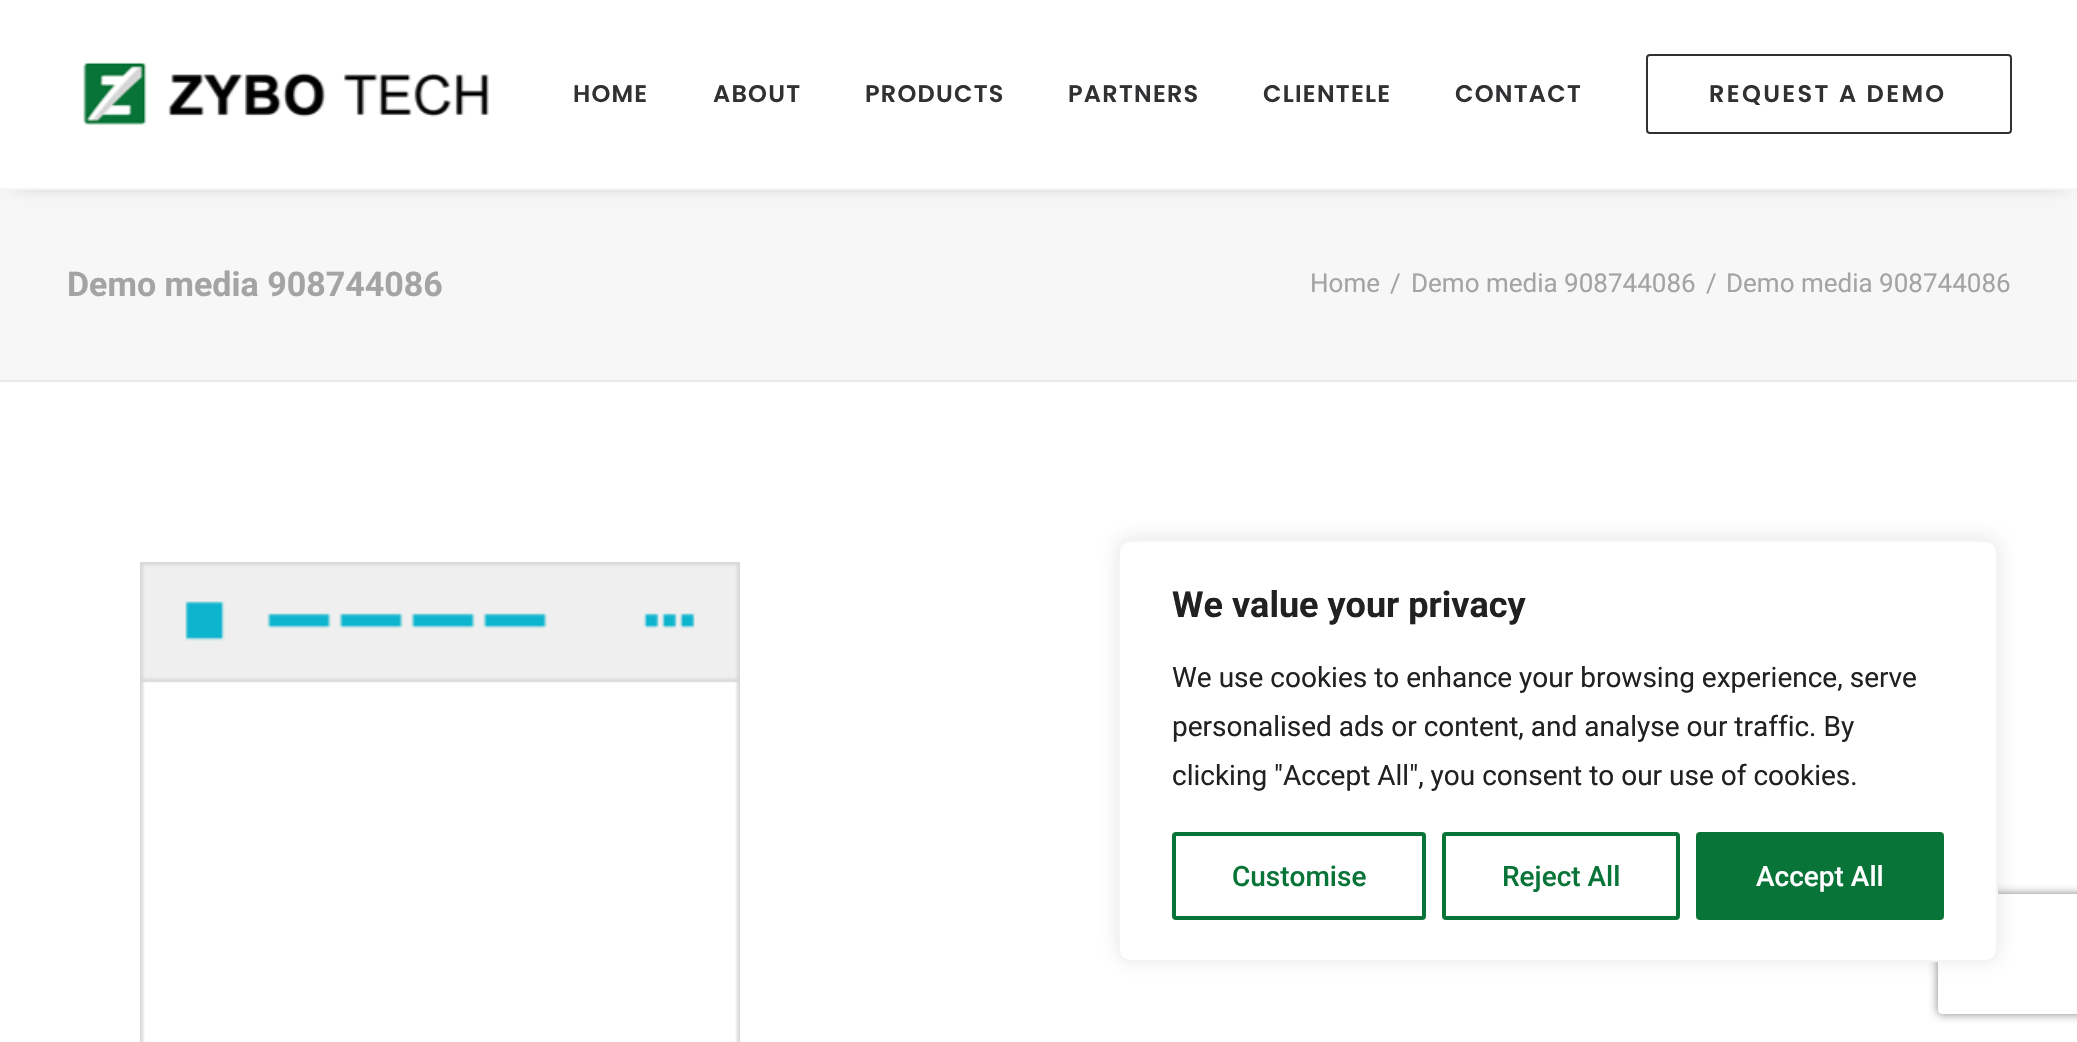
#include "include/core/SkBlurTypes.h"
#include "include/core/SkCanvas.h"
#include "include/core/SkData.h"
#include "include/core/SkFont.h"
#include "include/core/SkFontMgr.h"
#include "include/core/SkImage.h"
#include "include/core/SkMaskFilter.h"
#include "include/core/SkPaint.h"
#include "include/core/SkPathBuilder.h"
#include "include/core/SkTextBlob.h"
#include "include/effects/SkDashPathEffect.h"
#include "include/effects/SkGradientShader.h"
#include "include/utils/SkParsePath.h"

extern sk_sp<SkFontMgr> fontMgr;

void draw(SkCanvas* canvas) {
  SkPaint p;
  p.setAntiAlias(true);
  auto spacedText = [&](const char* s, float x, float y, const SkFont& font, const SkPaint& ink, float letter, float word) {
    std::vector<SkGlyphID> glyphs(font.countText(s, strlen(s), SkTextEncoding::kUTF8));
    std::vector<float> xs(glyphs.size());
    font.textToGlyphs(s, strlen(s), SkTextEncoding::kUTF8, glyphs);
    font.getXPos(glyphs, xs, x);
    float extra = 0;
    for (size_t i = 0; i < glyphs.size(); i++) {
      xs[i] += extra;
      extra += letter + word * (glyphs[i] == font.unicharToGlyph(' '));
    }
    canvas->drawTextBlob(SkTextBlob::MakeFromPosHGlyphs(glyphs, xs, y, font), 0, 0, ink);
  };
  canvas->clear(SkColorSetRGB(247, 247, 247));
  p.setColor(SkColorSetARGB(153, 0, 0, 0));
  p.setMaskFilter(SkMaskFilter::MakeBlur(kNormal_SkBlurStyle, 10));
  canvas->drawRect(SkRect::MakeLTRB(16, 28, 2064, 178), p);
  p.setMaskFilter(nullptr);
  p.setColor(SK_ColorWHITE);
  canvas->drawRect(SkRect::MakeLTRB(0, 0, 2077, 188), p);
  p.setColor(SkColorSetRGB(245, 245, 245));
  canvas->drawRect(SkRect::MakeLTRB(0, 188, 2077, 190), p);
  canvas->drawImageRect(SkImages::DeferredFromEncodedData(SkData::MakeFromFileName("images/1.png")), SkRect::MakeLTRB(83, 62, 489, 125), SkSamplingOptions());
  p.setStyle(SkPaint::kStroke_Style);
  p.setStrokeWidth(2);
  p.setColor(SkColorSetRGB(48, 49, 51));
  canvas->drawRoundRect(SkRect::MakeLTRB(1647, 55, 2011, 133), 3, 3, p);
  p.setStyle(SkPaint::kFill_Style);
  p.setColor(SkColorSetRGB(234, 234, 234));
  canvas->drawRect(SkRect::MakeLTRB(0, 380, 2077, 382), p);
  p.setColor(SK_ColorWHITE);
  canvas->drawRect(SkRect::MakeLTRB(0, 382, 2077, 1042), p);
  canvas->drawImageRect(SkImages::DeferredFromEncodedData(SkData::MakeFromFileName("images/2.png")), SkRect::MakeLTRB(140, 562, 740, 1042), SkSamplingOptions());
  p.setColor(SkColorSetARGB(77, 172, 171, 171));
  p.setMaskFilter(SkMaskFilter::MakeBlur(kNormal_SkBlurStyle, 10));
  canvas->drawRoundRect(SkRect::MakeLTRB(1118, 538, 1998, 960), 12, 12, p);
  p.setMaskFilter(nullptr);
  canvas->save();
  canvas->clipPath(SkPathBuilder(SkPathFillType::kEvenOdd).moveTo(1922, 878).lineTo(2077, 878).lineTo(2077, 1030).lineTo(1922, 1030).close().moveTo(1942, 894).lineTo(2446, 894).cubicTo(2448, 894, 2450, 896, 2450, 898).lineTo(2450, 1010).cubicTo(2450, 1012, 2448, 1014, 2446, 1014).lineTo(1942, 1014).cubicTo(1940, 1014, 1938, 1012, 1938, 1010).lineTo(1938, 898).cubicTo(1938, 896, 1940, 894, 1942, 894).close().detach(), true);
  p.setColor(SkColorSetRGB(128, 128, 128));
  p.setMaskFilter(SkMaskFilter::MakeBlur(kNormal_SkBlurStyle, 5));
  canvas->drawRoundRect(SkRect::MakeLTRB(1938, 894, 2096, 1014), 4, 4, p);
  p.setMaskFilter(nullptr);
  canvas->restore();
  p.setColor(SK_ColorWHITE);
  canvas->drawRoundRect(SkRect::MakeLTRB(1119, 541, 1997, 961), 11, 11, p);
  p.setStyle(SkPaint::kStroke_Style);
  p.setColor(SkColorSetRGB(244, 244, 244));
  canvas->drawRoundRect(SkRect::MakeLTRB(1119, 541, 1997, 961), 11, 11, p);
  p.setStrokeWidth(4);
  p.setColor(SkColorSetRGB(8, 116, 56));
  canvas->drawRoundRect(SkRect::MakeLTRB(1174, 834, 1424, 918), 2, 2, p);
  canvas->drawRoundRect(SkRect::MakeLTRB(1444, 834, 1678, 918), 2, 2, p);
  p.setStyle(SkPaint::kFill_Style);
  canvas->drawRoundRect(SkRect::MakeLTRB(1698, 834, 1942, 918), 2, 2, p);
  p.setStyle(SkPaint::kStroke_Style);
  canvas->drawRoundRect(SkRect::MakeLTRB(1698, 834, 1942, 918), 2, 2, p);
  SkFont font1(fontMgr->matchFamilyStyle("Poppins", SkFontStyle(600, SkFontStyle::kNormal_Width, SkFontStyle::kUpright_Slant)), 24);
  font1.setSubpixel(true);
  p.setStyle(SkPaint::kFill_Style);
  p.setColor(SkColorSetRGB(48, 49, 51));
  spacedText("HOME", 573, 102, font1, p, 1.25f, 0);
  spacedText("ABOUT", 713, 102, font1, p, 1.25f, 0);
  spacedText("PRODUCTS", 865, 102, font1, p, 1.25f, 0);
  spacedText("PARTNERS", 1068, 102, font1, p, 1.25f, 0);
  spacedText("CLIENTELE", 1263, 102, font1, p, 1.25f, 0);
  spacedText("CONTACT", 1455, 102, font1, p, 1.25f, 0);
  spacedText("REQUEST A DEMO", 1709, 102, font1, p, 2.4f, 0);
  SkFont font2(fontMgr->matchFamilyStyle("Roboto", SkFontStyle::Bold()), 34);
  font2.setSubpixel(true);
  p.setColor(SkColorSetRGB(164, 164, 164));
  canvas->drawString("Demo media 908744086", 67, 296, font2, p);
  SkFont font3(fontMgr->matchFamilyStyle("Roboto", SkFontStyle::Normal()), 26);
  font3.setSubpixel(true);
  canvas->drawString("Home", 1310, 292, font3, p);
  canvas->drawString("/", 1390, 292, font3, p);
  canvas->drawString("Demo media 908744086", 1411, 292, font3, p);
  canvas->drawString("/", 1706, 292, font3, p);
  canvas->drawString("Demo media 908744086", 1726, 292, font3, p);
  SkFont font4(fontMgr->matchFamilyStyle("Roboto", SkFontStyle::Bold()), 36);
  font4.setSubpixel(true);
  p.setColor(SkColorSetRGB(33, 33, 33));
  canvas->drawString("We value your privacy", 1172, 617, font4, p);
  SkFont font5(fontMgr->matchFamilyStyle("Roboto", SkFontStyle::Normal()), 28);
  font5.setSubpixel(true);
  canvas->drawString("We use cookies to enhance your browsing experience, serve", 1172, 687, font5, p);
  canvas->drawString("personalised ads or content, and analyse our traffic. By", 1172, 736, font5, p);
  canvas->drawString("clicking \"Accept All\", you consent to our use of cookies.", 1172, 785, font5, p);
  SkFont font6(fontMgr->matchFamilyStyle("Roboto", SkFontStyle(500, SkFontStyle::kNormal_Width, SkFontStyle::kUpright_Slant)), 28);
  font6.setSubpixel(true);
  p.setColor(SkColorSetRGB(8, 116, 56));
  canvas->drawString("Customise", 1232, 886, font6, p);
  canvas->drawString("Reject All", 1502, 886, font6, p);
  p.setColor(SK_ColorWHITE);
  canvas->drawString("Accept All", 1756, 886, font6, p);
}
